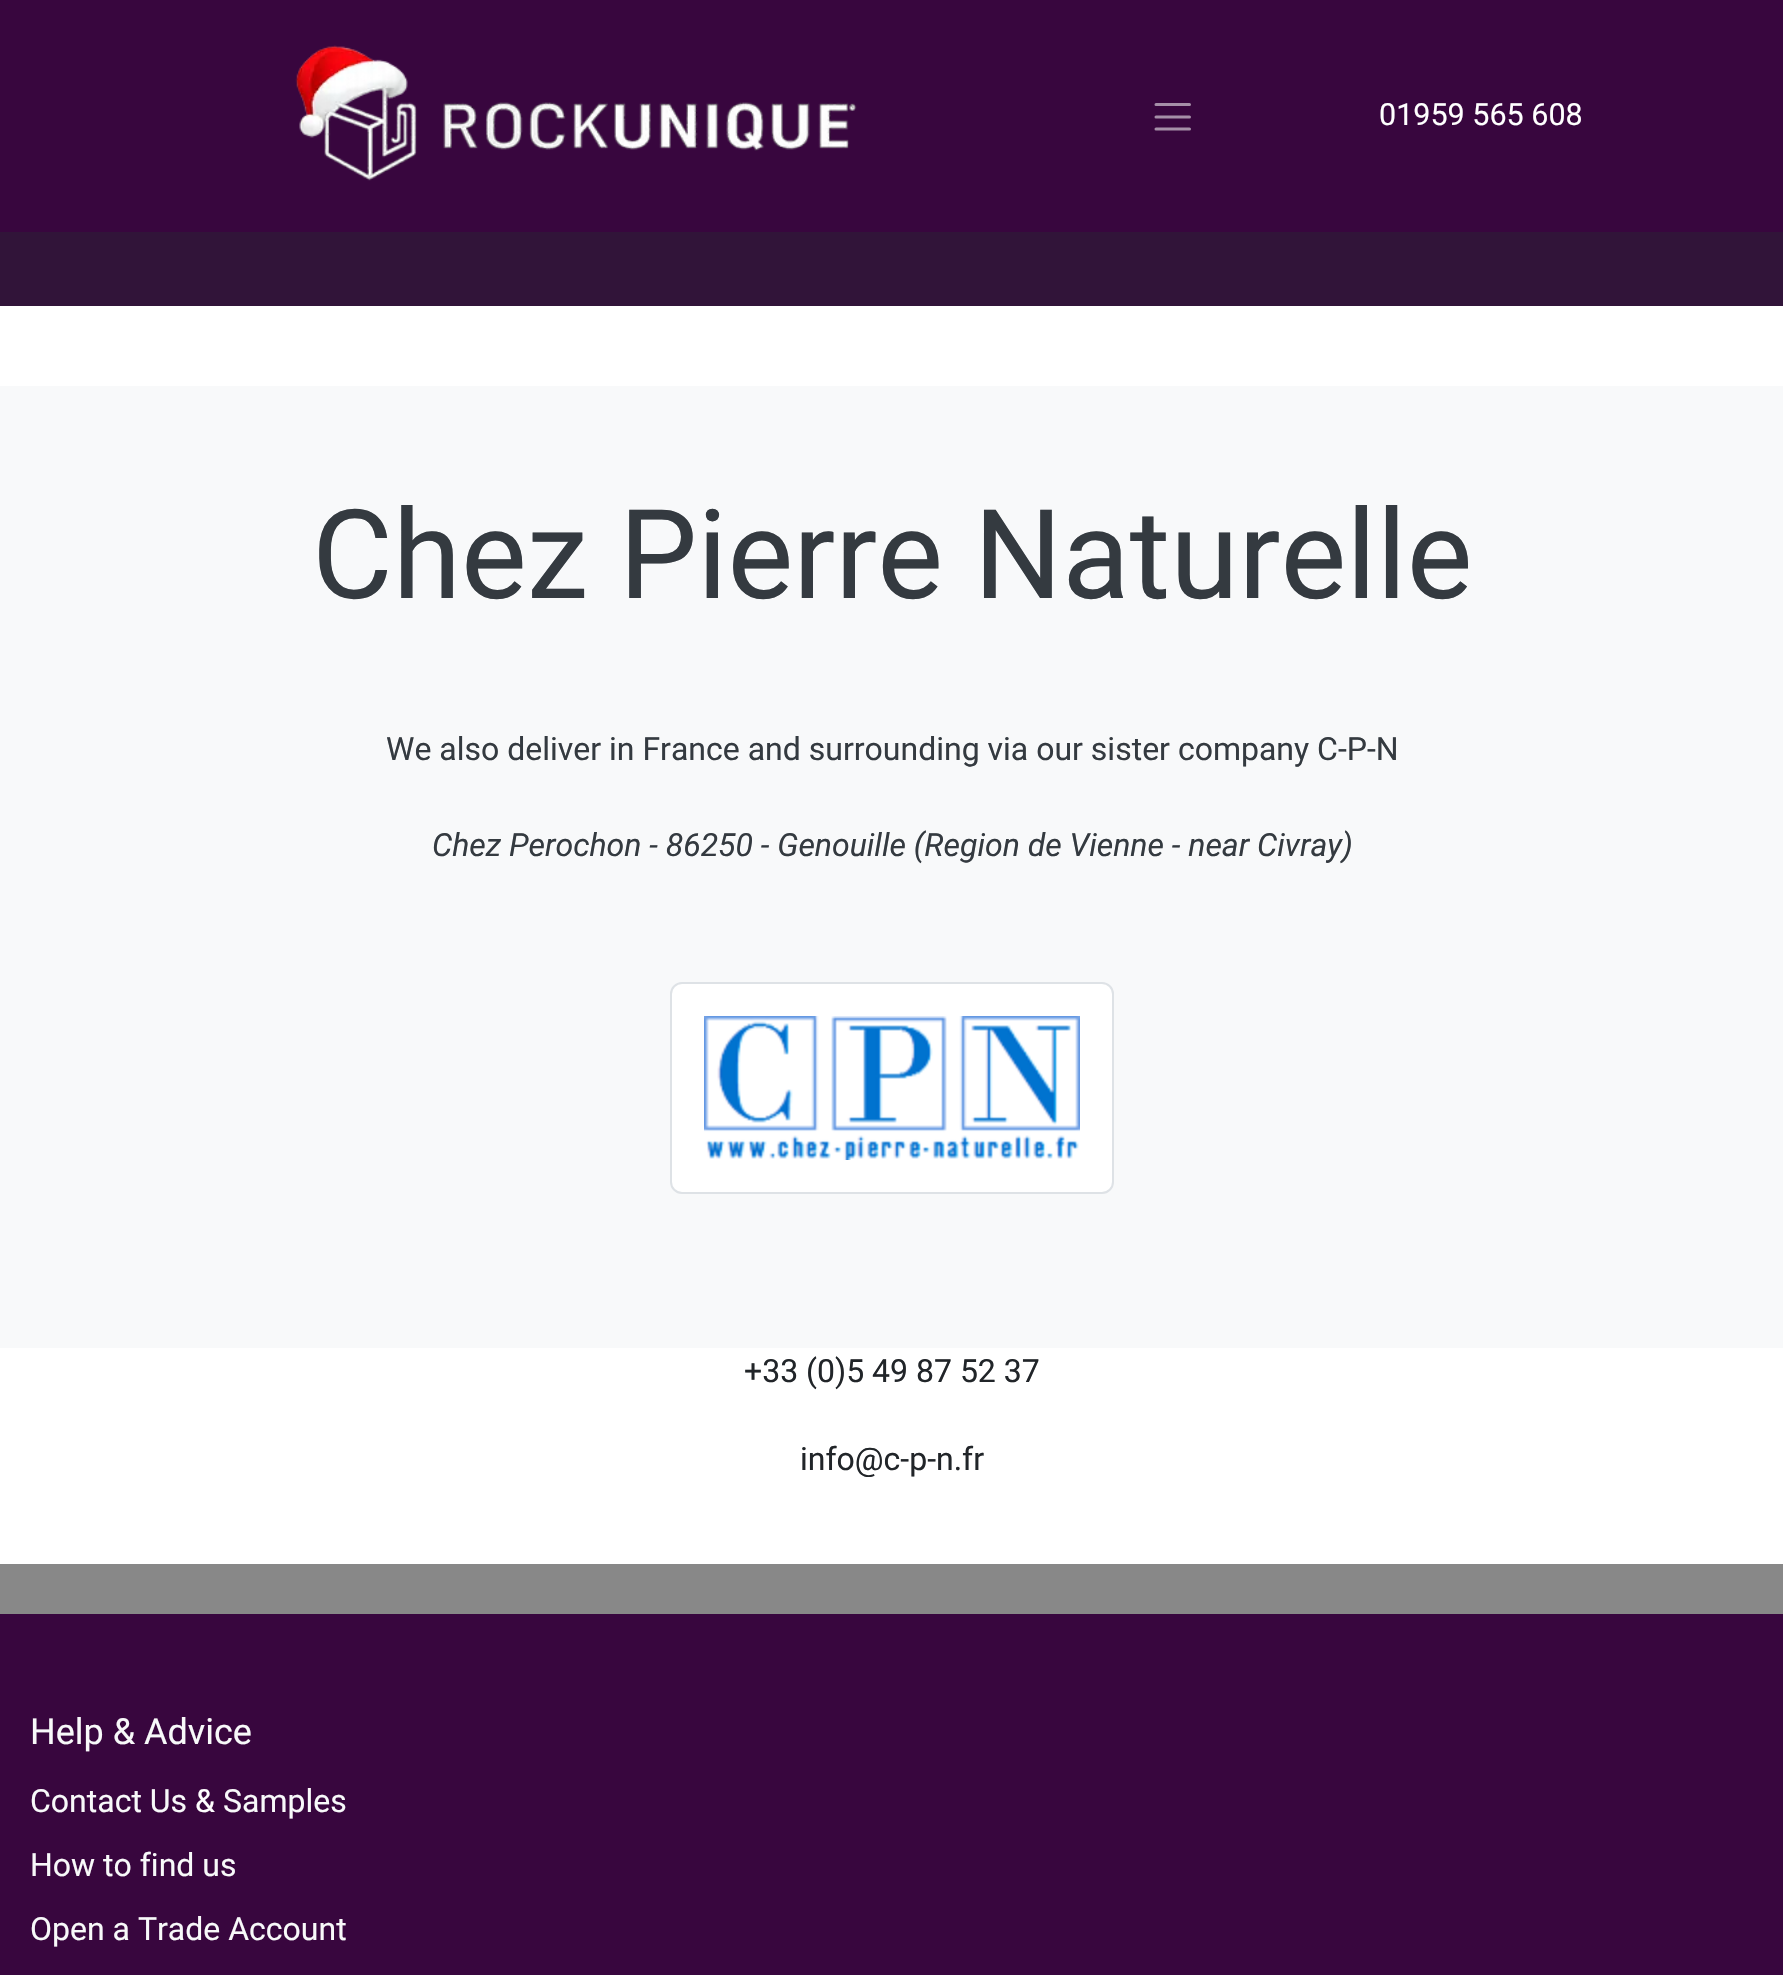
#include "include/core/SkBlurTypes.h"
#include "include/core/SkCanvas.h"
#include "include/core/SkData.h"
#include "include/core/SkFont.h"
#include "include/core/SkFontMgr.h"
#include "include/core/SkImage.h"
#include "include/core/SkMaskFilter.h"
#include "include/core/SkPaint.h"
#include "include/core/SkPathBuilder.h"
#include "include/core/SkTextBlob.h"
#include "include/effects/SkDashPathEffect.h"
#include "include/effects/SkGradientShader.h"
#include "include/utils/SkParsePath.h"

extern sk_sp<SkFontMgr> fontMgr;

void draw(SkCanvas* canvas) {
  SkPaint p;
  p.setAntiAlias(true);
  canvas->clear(SK_ColorWHITE);
  p.setColor(SkColorSetRGB(49, 20, 57));
  canvas->drawRect(SkRect::MakeLTRB(0, 232, 1783, 306), p);
  p.setColor(SkColorSetRGB(56, 6, 62));
  canvas->drawRect(SkRect::MakeLTRB(0, 0, 1783, 232), p);
  canvas->drawImageRect(SkImages::DeferredFromEncodedData(SkData::MakeFromFileName("images/1.png")), SkRect::MakeLTRB(295, 45, 857, 181), SkSamplingOptions());
  p.setStyle(SkPaint::kStroke_Style);
  p.setStrokeWidth(3);
  p.setStrokeCap(SkPaint::kRound_Cap);
  p.setColor(SkColorSetRGB(165, 143, 168));
  canvas->drawPath(SkPathBuilder().moveTo(1156, 104.5f).lineTo(1189.5f, 104.5f).moveTo(1156, 117).lineTo(1189.5f, 117).moveTo(1156, 129).lineTo(1189.5f, 129).detach(), p);
  p.setStyle(SkPaint::kFill_Style);
  p.setColor(SkColorSetRGB(248, 249, 250));
  canvas->drawRect(SkRect::MakeLTRB(0, 386, 1783, 1348), p);
  p.setColor(SK_ColorWHITE);
  canvas->drawRoundRect(SkRect::MakeLTRB(671, 983, 1113, 1193), 11, 11, p);
  p.setStyle(SkPaint::kStroke_Style);
  p.setStrokeWidth(2);
  p.setStrokeCap(SkPaint::kButt_Cap);
  p.setColor(SkColorSetRGB(222, 226, 230));
  canvas->drawRoundRect(SkRect::MakeLTRB(671, 983, 1113, 1193), 11, 11, p);
  canvas->drawImageRect(SkImages::DeferredFromEncodedData(SkData::MakeFromFileName("images/2.png")), SkRect::MakeLTRB(704, 1016, 1080, 1160), SkSamplingOptions());
  p.setStyle(SkPaint::kFill_Style);
  p.setColor(SkColorSetRGB(56, 6, 62));
  canvas->drawRect(SkRect::MakeLTRB(0, 1614, 1783, 1975), p);
  p.setColor(SkColorSetRGB(136, 136, 136));
  canvas->drawRect(SkRect::MakeLTRB(0, 1564, 1783, 1614), p);
  SkFont font1(fontMgr->matchFamilyStyle("Roboto", SkFontStyle::Normal()), 30.5f);
  font1.setSubpixel(true);
  p.setColor(SK_ColorWHITE);
  canvas->drawString("01959 565 608", 1379, 125, font1, p);
  SkFont font2(fontMgr->matchFamilyStyle("Roboto", SkFontStyle::Normal()), 124);
  font2.setSubpixel(true);
  p.setColor(SkColorSetRGB(52, 58, 64));
  canvas->drawString("Chez Pierre Naturelle", 312, 598, font2, p);
  SkFont font3(fontMgr->matchFamilyStyle("Roboto", SkFontStyle::Normal()), 32);
  font3.setSubpixel(true);
  canvas->drawString("We also deliver in France and surrounding via our sister company C-P-N", 386, 760, font3, p);
  SkFont font4(fontMgr->matchFamilyStyle("Roboto", SkFontStyle::Italic()), 32);
  font4.setSubpixel(true);
  canvas->drawString("Chez Perochon - 86250 - Genouille (Region de Vienne - near Civray)", 432, 856, font4, p);
  p.setColor(SkColorSetRGB(33, 37, 41));
  canvas->drawString("+33 (0)5 49 87 52 37", 744, 1382, font3, p);
  canvas->drawString("info@c-p-n.fr", 800, 1470, font3, p);
  SkFont font5(fontMgr->matchFamilyStyle("Roboto", SkFontStyle::Normal()), 36);
  font5.setSubpixel(true);
  p.setColor(SkColorSetRGB(248, 249, 250));
  canvas->drawString("Help & Advice", 30, 1744, font5, p);
  canvas->drawString("Contact Us", 30, 1812, font3, p);
  p.setColor(SK_ColorWHITE);
  canvas->drawString("&", 195, 1812, font3, p);
  p.setColor(SkColorSetRGB(248, 249, 250));
  canvas->drawString("Samples", 223, 1812, font3, p);
  canvas->drawString("How to find us", 30, 1876, font3, p);
  canvas->drawString("Open a Trade Account", 30, 1940, font3, p);
}
